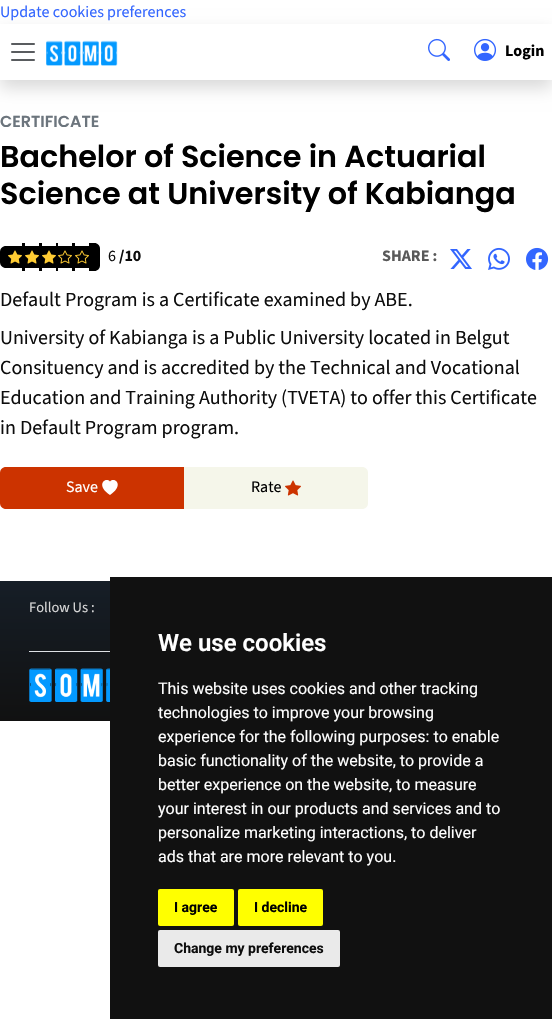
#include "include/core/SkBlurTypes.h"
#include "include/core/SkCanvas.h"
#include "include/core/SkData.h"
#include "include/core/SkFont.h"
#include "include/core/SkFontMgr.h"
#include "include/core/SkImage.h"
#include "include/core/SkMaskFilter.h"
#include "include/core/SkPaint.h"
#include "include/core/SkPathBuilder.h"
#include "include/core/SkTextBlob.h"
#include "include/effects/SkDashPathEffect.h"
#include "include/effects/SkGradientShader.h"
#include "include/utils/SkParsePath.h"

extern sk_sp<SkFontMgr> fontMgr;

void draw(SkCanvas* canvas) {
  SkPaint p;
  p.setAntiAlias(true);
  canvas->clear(SK_ColorWHITE);
  canvas->save();
  canvas->clipPath(SkPathBuilder(SkPathFillType::kEvenOdd).moveTo(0, 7).lineTo(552, 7).lineTo(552, 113).lineTo(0, 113).close().moveTo(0, 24).lineTo(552, 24).lineTo(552, 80).lineTo(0, 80).close().detach(), true);
  p.setColor(SkColorSetARGB(38, 0, 0, 0));
  p.setMaskFilter(SkMaskFilter::MakeBlur(kNormal_SkBlurStyle, 8));
  canvas->drawRect(SkRect::MakeLTRB(0, 32, 552, 88), p);
  p.setMaskFilter(nullptr);
  canvas->restore();
  canvas->drawImageRect(SkImages::DeferredFromEncodedData(SkData::MakeFromFileName("images/1.png")), SkRect::MakeLTRB(11, 43, 35, 61), SkSamplingOptions());
  canvas->drawImageRect(SkImages::DeferredFromEncodedData(SkData::MakeFromFileName("images/2.png")), SkRect::MakeLTRB(46, 40, 118, 66), SkSamplingOptions());
  canvas->drawImageRect(SkImages::DeferredFromEncodedData(SkData::MakeFromFileName("images/3.png")), SkRect::MakeLTRB(428, 38, 450, 61), SkSamplingOptions());
  canvas->drawImageRect(SkImages::DeferredFromEncodedData(SkData::MakeFromFileName("images/4.png")), SkRect::MakeLTRB(474, 38, 497, 61), SkSamplingOptions());
  p.setColor(SK_ColorBLACK);
  canvas->drawPath(SkPathBuilder().moveTo(6, 246).lineTo(22, 246).lineTo(22, 268).lineTo(6, 268).cubicTo(2.5f, 268, 0, 265.5f, 0, 262).lineTo(0, 252).cubicTo(0, 248.5f, 2.5f, 246, 6, 246).close().detach(), p);
  canvas->drawRect(SkRect::MakeLTRB(22, 243, 25, 271), p);
  canvas->drawRect(SkRect::MakeLTRB(25, 246, 39, 268), p);
  canvas->drawRect(SkRect::MakeLTRB(39, 243, 42, 271), p);
  canvas->drawRect(SkRect::MakeLTRB(42, 246, 56, 268), p);
  canvas->drawRect(SkRect::MakeLTRB(56, 243, 58, 271), p);
  canvas->drawRect(SkRect::MakeLTRB(58, 246, 72, 268), p);
  canvas->drawRect(SkRect::MakeLTRB(72, 243, 75, 271), p);
  canvas->drawRect(SkRect::MakeLTRB(75, 246, 89, 268), p);
  canvas->drawPath(SkPathBuilder().moveTo(89, 243).lineTo(94.5f, 243).cubicTo(97.5f, 243, 100, 245.5f, 100, 248.5f).lineTo(100, 265.5f).cubicTo(100, 268.5f, 97.5f, 271, 94.5f, 271).lineTo(89, 271).close().detach(), p);
  canvas->drawImageRect(SkImages::DeferredFromEncodedData(SkData::MakeFromFileName("images/5.png")), SkRect::MakeLTRB(8, 250, 22, 264), SkSamplingOptions());
  canvas->drawImageRect(SkImages::DeferredFromEncodedData(SkData::MakeFromFileName("images/5.png")), SkRect::MakeLTRB(25, 250, 39, 264), SkSamplingOptions());
  canvas->drawImageRect(SkImages::DeferredFromEncodedData(SkData::MakeFromFileName("images/5.png")), SkRect::MakeLTRB(42, 250, 56, 264), SkSamplingOptions());
  canvas->drawImageRect(SkImages::DeferredFromEncodedData(SkData::MakeFromFileName("images/6.png")), SkRect::MakeLTRB(58, 250, 72, 264), SkSamplingOptions());
  canvas->drawImageRect(SkImages::DeferredFromEncodedData(SkData::MakeFromFileName("images/6.png")), SkRect::MakeLTRB(75, 250, 89, 264), SkSamplingOptions());
  canvas->drawImageRect(SkImages::DeferredFromEncodedData(SkData::MakeFromFileName("images/7.png")), SkRect::MakeLTRB(450, 249, 472, 269), SkSamplingOptions());
  canvas->drawImageRect(SkImages::DeferredFromEncodedData(SkData::MakeFromFileName("images/8.png")), SkRect::MakeLTRB(488, 247, 510, 270), SkSamplingOptions());
  canvas->drawImageRect(SkImages::DeferredFromEncodedData(SkData::MakeFromFileName("images/9.png")), SkRect::MakeLTRB(526, 247, 549, 270), SkSamplingOptions());
  p.setColor(SkColorSetRGB(204, 51, 0));
  canvas->drawPath(SkPathBuilder().moveTo(6, 467).lineTo(184, 467).lineTo(184, 509).lineTo(6, 509).cubicTo(2.5f, 509, 0, 506.5f, 0, 503).lineTo(0, 473).cubicTo(0, 469.5f, 2.5f, 467, 6, 467).close().detach(), p);
  p.setColor(SK_ColorWHITE);
  canvas->drawPath(SkPathBuilder().moveTo(110, 481.5f).cubicTo(114.5f, 476.5f, 125, 485, 110, 495).cubicTo(95, 485, 105.5f, 476.5f, 110, 481.5f).close().detach(), p);
  p.setColor(SkColorSetRGB(245, 246, 234));
  canvas->drawPath(SkPathBuilder().moveTo(184, 467).lineTo(362, 467).cubicTo(365.5f, 467, 368, 469.5f, 368, 473).lineTo(368, 503).cubicTo(368, 506.5f, 365.5f, 509, 362, 509).lineTo(184, 509).close().detach(), p);
  canvas->drawImageRect(SkImages::DeferredFromEncodedData(SkData::MakeFromFileName("images/10.png")), SkRect::MakeLTRB(285, 480, 301, 496), SkSamplingOptions());
  {
    const SkColor colors[] = {SkColorSetRGB(22, 30, 39), SkColorSetRGB(17, 17, 17)};
    const float stops[] = {0, 1};
    const SkPoint ends[] = {{276, 581}, {276, 721}};
    p.setShader(SkGradientShader::MakeLinear(ends, colors, stops, 2, SkTileMode::kClamp));
    p.setAlpha(255);
  }
  canvas->drawRect(SkRect::MakeLTRB(0, 581, 110, 721), p);
  p.setShader(nullptr);
  p.setColor(SkColorSetRGB(222, 226, 230));
  canvas->drawRect(SkRect::MakeLTRB(29, 651, 110, 652), p);
  canvas->drawImageRect(SkImages::DeferredFromEncodedData(SkData::MakeFromFileName("images/11.png")), SkRect::MakeLTRB(29, 668, 110, 702), SkSamplingOptions());
  p.setColor(SkColorSetRGB(17, 17, 17));
  canvas->drawRect(SkRect::MakeLTRB(110, 577, 552, 1019), p);
  p.setColor(SkColorSetRGB(255, 255, 0));
  canvas->drawRoundRect(SkRect::MakeLTRB(158, 889, 234, 926), 2, 2, p);
  canvas->drawRoundRect(SkRect::MakeLTRB(238, 889, 323, 926), 2, 2, p);
  p.setColor(SkColorSetRGB(234, 234, 234));
  canvas->drawRoundRect(SkRect::MakeLTRB(158, 930, 340, 967), 2, 2, p);
  SkFont font1(fontMgr->matchFamilyStyle("Source Sans 3", SkFontStyle::Normal()), 16);
  font1.setSubpixel(true);
  p.setColor(SkColorSetRGB(51, 102, 255));
  canvas->drawString("Update cookies preferences", 0, 17, font1, p);
  SkFont font2(fontMgr->matchFamilyStyle("Source Sans 3", SkFontStyle::Bold()), 16);
  font2.setSubpixel(true);
  p.setColor(SK_ColorBLACK);
  canvas->drawString("Login", 505, 56, font2, p);
  SkFont font3(fontMgr->matchFamilyStyle("Poppins", SkFontStyle(600, SkFontStyle::kNormal_Width, SkFontStyle::kUpright_Slant)), 16);
  font3.setSubpixel(true);
  p.setColor(SkColorSetRGB(108, 117, 125));
  canvas->drawString("CERTIFICATE", 0, 127, font3, p);
  SkFont font4(fontMgr->matchFamilyStyle("Poppins", SkFontStyle(600, SkFontStyle::kNormal_Width, SkFontStyle::kUpright_Slant)), 30.25f);
  font4.setSubpixel(true);
  p.setColor(SK_ColorBLACK);
  canvas->drawString("Bachelor of Science in Actuarial", 0, 167, font4, p);
  canvas->drawString("Science at University of Kabianga", 0, 204, font4, p);
  p.setColor(SkColorSetRGB(13, 13, 13));
  canvas->drawString("6", 108, 261, font1, p);
  canvas->drawString("/10", 119, 261, font2, p);
  p.setColor(SkColorSetRGB(89, 89, 89));
  canvas->drawString("SHARE :", 382, 261, font2, p);
  SkFont font5(fontMgr->matchFamilyStyle("Source Sans 3", SkFontStyle::Normal()), 20);
  font5.setSubpixel(true);
  p.setColor(SkColorSetRGB(13, 13, 13));
  canvas->drawString("Default Program is a Certificate examined by ABE.", 0, 306, font5, p);
  canvas->drawString("University of Kabianga is a Public University located in Belgut", 0, 344, font5, p);
  canvas->drawString("Consituency and is accredited by the Technical and Vocational", 0, 374, font5, p);
  canvas->drawString("Education and Training Authority (TVETA) to offer this Certificate", 0, 404, font5, p);
  canvas->drawString("in Default Program program.", 0, 434, font5, p);
  p.setColor(SK_ColorWHITE);
  canvas->drawString("Save", 66, 492, font1, p);
  p.setColor(SK_ColorBLACK);
  canvas->drawString("Rate", 251, 492, font1, p);
  SkFont font6(fontMgr->matchFamilyStyle("Source Sans 3", SkFontStyle::Normal()), 14.5f);
  font6.setSubpixel(true);
  p.setColor(SkColorSetRGB(214, 214, 214));
  canvas->drawString("Follow Us :", 29, 612, font6, p);
  SkFont font7(fontMgr->matchFamilyStyle("Roboto", SkFontStyle(600, SkFontStyle::kNormal_Width, SkFontStyle::kUpright_Slant)), 24);
  font7.setSubpixel(true);
  p.setColor(SK_ColorWHITE);
  canvas->drawString("We use cookies", 158, 651, font7, p);
  SkFont font8(fontMgr->matchFamilyStyle("Roboto", SkFontStyle::Normal()), 16);
  font8.setSubpixel(true);
  canvas->drawString("This website uses cookies and other tracking", 158, 694, font8, p);
  canvas->drawString("technologies to improve your browsing", 158, 718, font8, p);
  canvas->drawString("experience for the following purposes: to enable", 158, 742, font8, p);
  canvas->drawString("basic functionality of the website, to provide a", 158, 766, font8, p);
  canvas->drawString("better experience on the website, to measure", 158, 790, font8, p);
  canvas->drawString("your interest in our products and services and to", 158, 814, font8, p);
  canvas->drawString("personalize marketing interactions, to deliver", 158, 838, font8, p);
  canvas->drawString("ads that are more relevant to you.", 158, 862, font8, p);
  SkFont font9(fontMgr->matchFamilyStyle("Roboto", SkFontStyle::Bold()), 14);
  font9.setSubpixel(true);
  p.setColor(SK_ColorBLACK);
  canvas->drawString("I agree", 174, 912, font9, p);
  canvas->drawString("I decline", 254, 912, font9, p);
  p.setColor(SkColorSetRGB(13, 13, 13));
  canvas->drawString("Change my preferences", 174, 953, font9, p);
}
